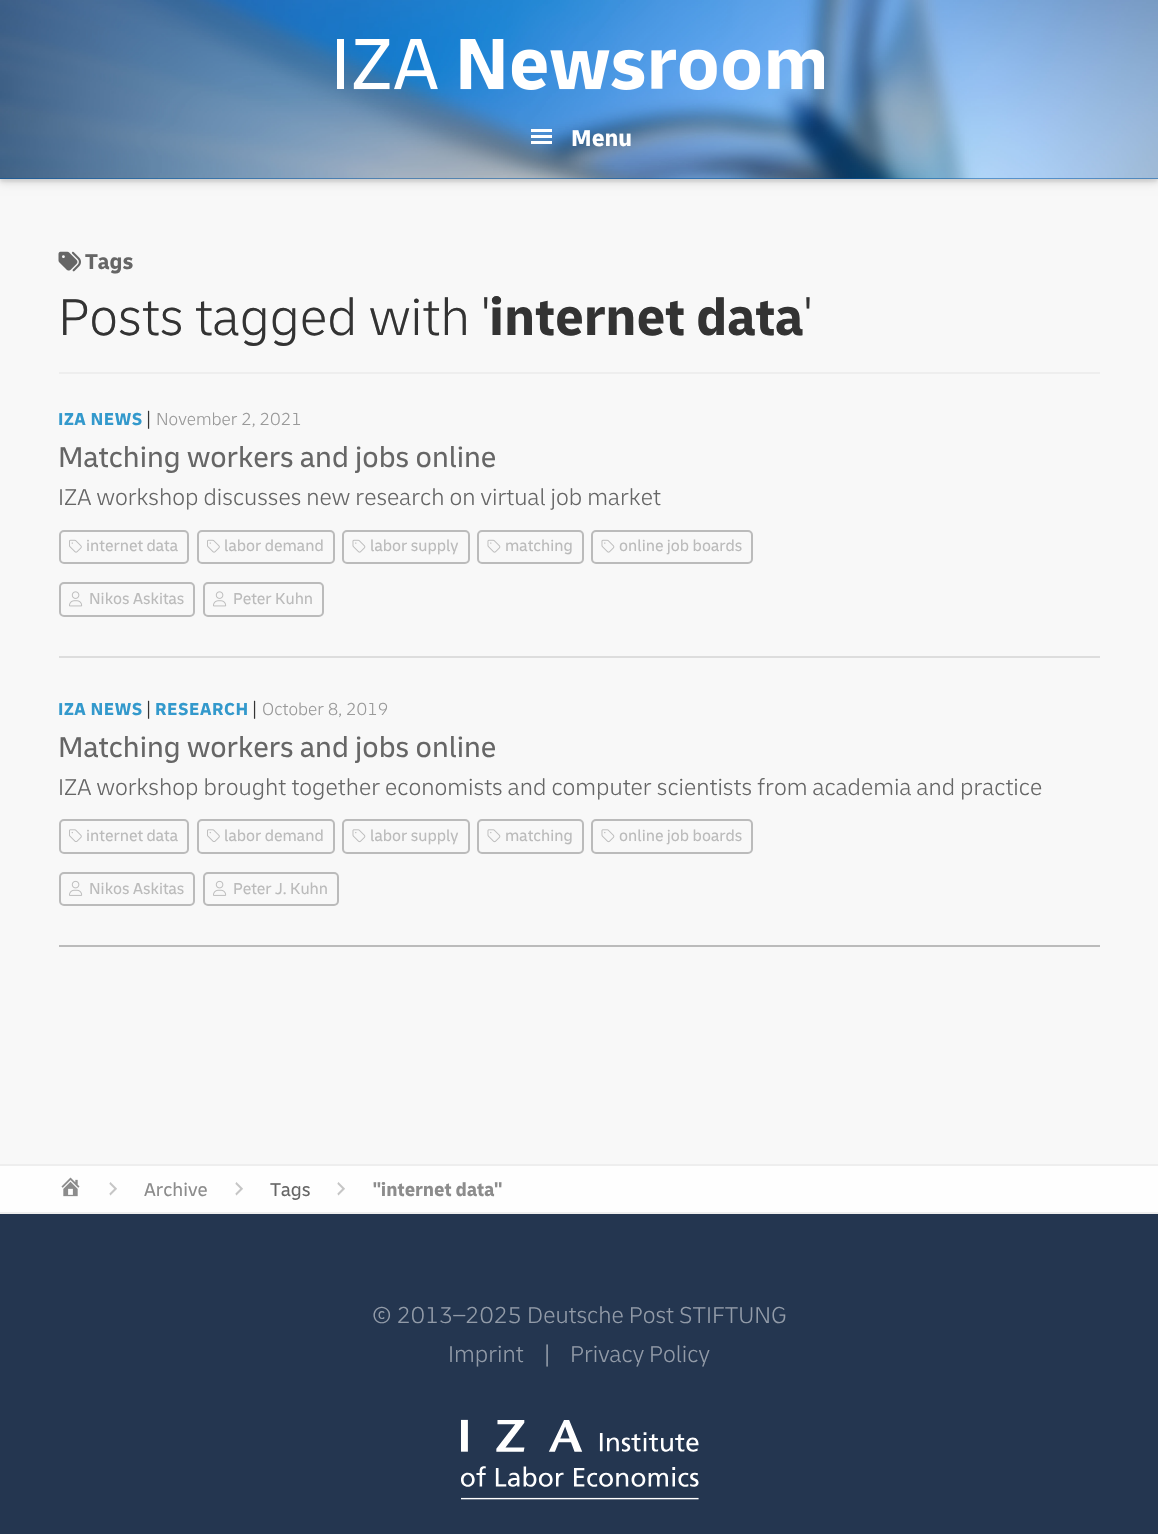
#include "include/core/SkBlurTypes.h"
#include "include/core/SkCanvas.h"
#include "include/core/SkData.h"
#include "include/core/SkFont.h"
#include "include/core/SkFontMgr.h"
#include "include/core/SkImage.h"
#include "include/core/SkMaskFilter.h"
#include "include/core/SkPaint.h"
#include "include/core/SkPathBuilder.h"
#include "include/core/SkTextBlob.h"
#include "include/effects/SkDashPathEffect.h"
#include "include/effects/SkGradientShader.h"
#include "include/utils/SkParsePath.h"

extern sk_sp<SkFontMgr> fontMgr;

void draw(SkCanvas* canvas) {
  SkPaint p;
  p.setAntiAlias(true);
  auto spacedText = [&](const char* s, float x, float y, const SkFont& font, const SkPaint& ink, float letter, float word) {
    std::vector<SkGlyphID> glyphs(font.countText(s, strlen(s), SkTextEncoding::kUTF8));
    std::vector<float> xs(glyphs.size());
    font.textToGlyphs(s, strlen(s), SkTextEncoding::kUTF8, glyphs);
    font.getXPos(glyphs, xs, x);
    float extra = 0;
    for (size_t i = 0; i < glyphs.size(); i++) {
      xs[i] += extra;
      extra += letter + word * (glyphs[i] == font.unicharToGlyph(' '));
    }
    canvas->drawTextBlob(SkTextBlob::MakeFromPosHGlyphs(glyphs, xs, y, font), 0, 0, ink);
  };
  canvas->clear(SkColorSetRGB(248, 248, 248));
  p.setColor(SkColorSetARGB(23, 0, 0, 0));
  p.setMaskFilter(SkMaskFilter::MakeBlur(kNormal_SkBlurStyle, 1.5f));
  canvas->drawRect(SkRect::MakeLTRB(0, 3, 1158, 182), p);
  p.setMaskFilter(nullptr);
  p.setColor(SkColorSetARGB(26, 0, 0, 0));
  p.setMaskFilter(SkMaskFilter::MakeBlur(kNormal_SkBlurStyle, 4.5f));
  canvas->drawRect(SkRect::MakeLTRB(0, 5, 1158, 183), p);
  p.setMaskFilter(nullptr);
  p.setColor(SkColorSetRGB(0, 83, 160));
  canvas->drawRect(SkRect::MakeLTRB(0, 178, 1158, 179), p);
  canvas->drawImageRect(SkImages::DeferredFromEncodedData(SkData::MakeFromFileName("images/1.png")), SkRect::MakeLTRB(0, 0, 1158, 179), SkSamplingOptions());
  canvas->drawImageRect(SkImages::DeferredFromEncodedData(SkData::MakeFromFileName("images/2.png")), SkRect::MakeLTRB(337, 39, 824, 90), SkSamplingOptions());
  canvas->drawImageRect(SkImages::DeferredFromEncodedData(SkData::MakeFromFileName("images/3.png")), SkRect::MakeLTRB(531, 129, 552, 144), SkSamplingOptions());
  canvas->drawImageRect(SkImages::DeferredFromEncodedData(SkData::MakeFromFileName("images/4.png")), SkRect::MakeLTRB(58, 251, 81, 272), SkSamplingOptions());
  p.setColor(SkColorSetRGB(238, 238, 238));
  canvas->drawRect(SkRect::MakeLTRB(59, 372, 1100, 374), p);
  p.setColor(SkColorSetRGB(221, 221, 221));
  canvas->drawRect(SkRect::MakeLTRB(59, 656, 1100, 658), p);
  p.setStyle(SkPaint::kStroke_Style);
  p.setStrokeWidth(2);
  p.setColor(SkColorSetRGB(187, 187, 187));
  canvas->drawRoundRect(SkRect::MakeLTRB(60, 531, 188, 563), 4, 4, p);
  canvas->drawImageRect(SkImages::DeferredFromEncodedData(SkData::MakeFromFileName("images/5.png")), SkRect::MakeLTRB(69, 539, 82, 553), SkSamplingOptions());
  canvas->drawRoundRect(SkRect::MakeLTRB(198, 531, 334, 563), 4, 4, p);
  canvas->drawImageRect(SkImages::DeferredFromEncodedData(SkData::MakeFromFileName("images/5.png")), SkRect::MakeLTRB(207, 539, 220, 553), SkSamplingOptions());
  canvas->drawRoundRect(SkRect::MakeLTRB(343, 531, 469, 563), 4, 4, p);
  canvas->drawImageRect(SkImages::DeferredFromEncodedData(SkData::MakeFromFileName("images/6.png")), SkRect::MakeLTRB(352, 539, 366, 553), SkSamplingOptions());
  canvas->drawRoundRect(SkRect::MakeLTRB(478, 531, 583, 563), 4, 4, p);
  canvas->drawImageRect(SkImages::DeferredFromEncodedData(SkData::MakeFromFileName("images/6.png")), SkRect::MakeLTRB(487, 539, 501, 553), SkSamplingOptions());
  canvas->drawRoundRect(SkRect::MakeLTRB(592, 531, 752, 563), 4, 4, p);
  canvas->drawImageRect(SkImages::DeferredFromEncodedData(SkData::MakeFromFileName("images/6.png")), SkRect::MakeLTRB(601, 539, 615, 553), SkSamplingOptions());
  canvas->drawRoundRect(SkRect::MakeLTRB(60, 583, 194, 616), 4, 4, p);
  canvas->drawImageRect(SkImages::DeferredFromEncodedData(SkData::MakeFromFileName("images/7.png")), SkRect::MakeLTRB(69, 591, 83, 607), SkSamplingOptions());
  canvas->drawRoundRect(SkRect::MakeLTRB(204, 583, 323, 616), 4, 4, p);
  canvas->drawImageRect(SkImages::DeferredFromEncodedData(SkData::MakeFromFileName("images/7.png")), SkRect::MakeLTRB(213, 591, 227, 607), SkSamplingOptions());
  p.setStyle(SkPaint::kFill_Style);
  canvas->drawRect(SkRect::MakeLTRB(59, 945, 1100, 947), p);
  p.setStyle(SkPaint::kStroke_Style);
  canvas->drawRoundRect(SkRect::MakeLTRB(60, 820, 188, 853), 4, 4, p);
  canvas->drawImageRect(SkImages::DeferredFromEncodedData(SkData::MakeFromFileName("images/8.png")), SkRect::MakeLTRB(69, 829, 82, 842), SkSamplingOptions());
  canvas->drawRoundRect(SkRect::MakeLTRB(198, 820, 334, 853), 4, 4, p);
  canvas->drawImageRect(SkImages::DeferredFromEncodedData(SkData::MakeFromFileName("images/8.png")), SkRect::MakeLTRB(207, 829, 220, 842), SkSamplingOptions());
  canvas->drawRoundRect(SkRect::MakeLTRB(343, 820, 469, 853), 4, 4, p);
  canvas->drawImageRect(SkImages::DeferredFromEncodedData(SkData::MakeFromFileName("images/9.png")), SkRect::MakeLTRB(352, 829, 366, 843), SkSamplingOptions());
  canvas->drawRoundRect(SkRect::MakeLTRB(478, 820, 583, 853), 4, 4, p);
  canvas->drawImageRect(SkImages::DeferredFromEncodedData(SkData::MakeFromFileName("images/9.png")), SkRect::MakeLTRB(487, 829, 501, 843), SkSamplingOptions());
  canvas->drawRoundRect(SkRect::MakeLTRB(592, 820, 752, 853), 4, 4, p);
  canvas->drawImageRect(SkImages::DeferredFromEncodedData(SkData::MakeFromFileName("images/9.png")), SkRect::MakeLTRB(601, 829, 615, 843), SkSamplingOptions());
  canvas->drawRoundRect(SkRect::MakeLTRB(60, 873, 194, 905), 4, 4, p);
  canvas->drawImageRect(SkImages::DeferredFromEncodedData(SkData::MakeFromFileName("images/10.png")), SkRect::MakeLTRB(69, 880, 83, 896), SkSamplingOptions());
  canvas->drawRoundRect(SkRect::MakeLTRB(204, 873, 338, 905), 4, 4, p);
  canvas->drawImageRect(SkImages::DeferredFromEncodedData(SkData::MakeFromFileName("images/10.png")), SkRect::MakeLTRB(213, 880, 227, 896), SkSamplingOptions());
  p.setStyle(SkPaint::kFill_Style);
  p.setColor(SkColorSetRGB(254, 254, 254));
  canvas->drawRect(SkRect::MakeLTRB(0, 1166, 1158, 1212), p);
  p.setColor(SkColorSetRGB(238, 238, 238));
  canvas->drawRect(SkRect::MakeLTRB(0, 1164, 1158, 1166), p);
  canvas->drawImageRect(SkImages::DeferredFromEncodedData(SkData::MakeFromFileName("images/11.png")), SkRect::MakeLTRB(61, 1177, 80, 1197), SkSamplingOptions());
  canvas->drawImageRect(SkImages::DeferredFromEncodedData(SkData::MakeFromFileName("images/12.png")), SkRect::MakeLTRB(109, 1182, 117, 1196), SkSamplingOptions());
  canvas->drawImageRect(SkImages::DeferredFromEncodedData(SkData::MakeFromFileName("images/12.png")), SkRect::MakeLTRB(235, 1182, 243, 1196), SkSamplingOptions());
  canvas->drawImageRect(SkImages::DeferredFromEncodedData(SkData::MakeFromFileName("images/12.png")), SkRect::MakeLTRB(337, 1182, 345, 1196), SkSamplingOptions());
  p.setColor(SkColorSetRGB(36, 54, 80));
  canvas->drawRect(SkRect::MakeLTRB(0, 1214, 1158, 1534), p);
  p.setColor(SkColorSetRGB(238, 238, 238));
  canvas->drawRect(SkRect::MakeLTRB(0, 1212, 1158, 1214), p);
  canvas->drawImageRect(SkImages::DeferredFromEncodedData(SkData::MakeFromFileName("images/13.png")), SkRect::MakeLTRB(461, 1419, 699, 1500), SkSamplingOptions());
  SkFont font1(fontMgr->matchFamilyStyle("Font", SkFontStyle::Bold()), 24);
  font1.setSubpixel(true);
  p.setColor(SK_ColorWHITE);
  canvas->drawString("Menu", 571, 146, font1, p);
  SkFont font2(fontMgr->matchFamilyStyle("Font", SkFontStyle::Bold()), 22.5f);
  font2.setSubpixel(true);
  p.setColor(SkColorSetRGB(102, 102, 102));
  canvas->drawString("Tags", 85, 269, font2, p);
  SkFont font3(fontMgr->matchFamilyStyle("Font", SkFontStyle(300, SkFontStyle::kNormal_Width, SkFontStyle::kUpright_Slant)), 54);
  font3.setSubpixel(true);
  p.setColor(SkColorSetRGB(51, 51, 51));
  canvas->drawString("Posts tagged with '", 58, 335, font3, p);
  SkFont font4(fontMgr->matchFamilyStyle("Font", SkFontStyle::Bold()), 54);
  font4.setSubpixel(true);
  canvas->drawString("internet data", 489, 335, font4, p);
  canvas->drawString("'", 804, 335, font3, p);
  SkFont font5(fontMgr->matchFamilyStyle("Font", SkFontStyle::Bold()), 18);
  font5.setSubpixel(true);
  p.setColor(SkColorSetRGB(51, 153, 204));
  spacedText("IZA NEWS", 58, 425, font5, p, 0.5f, 0);
  SkFont font6(fontMgr->matchFamilyStyle("Font", SkFontStyle(300, SkFontStyle::kNormal_Width, SkFontStyle::kUpright_Slant)), 19.5f);
  font6.setSubpixel(true);
  p.setColor(SkColorSetRGB(51, 51, 51));
  spacedText("|", 146, 425, font6, p, 0.5f, 0);
  SkFont font7(fontMgr->matchFamilyStyle("Font", SkFontStyle(300, SkFontStyle::kNormal_Width, SkFontStyle::kUpright_Slant)), 18);
  font7.setSubpixel(true);
  p.setColor(SkColorSetRGB(153, 153, 153));
  canvas->drawString("November 2, 2021", 156, 425, font7, p);
  SkFont font8(fontMgr->matchFamilyStyle("Font", SkFontStyle::Normal()), 30);
  font8.setSubpixel(true);
  p.setColor(SkColorSetRGB(102, 102, 102));
  canvas->drawString("Matching workers and jobs online", 58, 467, font8, p);
  SkFont font9(fontMgr->matchFamilyStyle("Font", SkFontStyle(300, SkFontStyle::kNormal_Width, SkFontStyle::kUpright_Slant)), 24);
  font9.setSubpixel(true);
  canvas->drawString("IZA workshop discusses new research on virtual job market", 58, 505, font9, p);
  SkFont font10(fontMgr->matchFamilyStyle("Font", SkFontStyle::Normal()), 16.5f);
  font10.setSubpixel(true);
  p.setColor(SkColorSetRGB(187, 187, 187));
  canvas->drawString("internet data", 86, 551, font10, p);
  canvas->drawString("labor demand", 224, 551, font10, p);
  canvas->drawString("labor supply", 370, 551, font10, p);
  canvas->drawString("matching", 505, 551, font10, p);
  canvas->drawString("online job boards", 619, 551, font10, p);
  canvas->drawString("Nikos Askitas", 89, 604, font10, p);
  canvas->drawString("Peter Kuhn", 233, 604, font10, p);
  p.setColor(SkColorSetRGB(51, 153, 204));
  spacedText("IZA NEWS", 58, 715, font5, p, 0.5f, 0);
  p.setColor(SkColorSetRGB(51, 51, 51));
  spacedText("|", 146, 715, font6, p, 0.5f, 0);
  p.setColor(SkColorSetRGB(51, 153, 204));
  spacedText("RESEARCH", 155, 715, font5, p, 0.5f, 0);
  p.setColor(SkColorSetRGB(51, 51, 51));
  spacedText("|", 252, 715, font6, p, 0.5f, 0);
  p.setColor(SkColorSetRGB(153, 153, 153));
  canvas->drawString("October 8, 2019", 262, 715, font7, p);
  p.setColor(SkColorSetRGB(102, 102, 102));
  canvas->drawString("Matching workers and jobs online", 58, 757, font8, p);
  canvas->drawString("IZA workshop brought together economists and computer scientists from academia and practice", 58, 795, font9, p);
  p.setColor(SkColorSetRGB(187, 187, 187));
  canvas->drawString("internet data", 86, 841, font10, p);
  canvas->drawString("labor demand", 224, 841, font10, p);
  canvas->drawString("labor supply", 370, 841, font10, p);
  canvas->drawString("matching", 505, 841, font10, p);
  canvas->drawString("online job boards", 619, 841, font10, p);
  canvas->drawString("Nikos Askitas", 89, 894, font10, p);
  canvas->drawString("Peter J. Kuhn", 233, 894, font10, p);
  SkFont font11(fontMgr->matchFamilyStyle("Font", SkFontStyle::Normal()), 19.5f);
  font11.setSubpixel(true);
  p.setColor(SkColorSetRGB(140, 140, 140));
  canvas->drawString("Archive", 144, 1196, font11, p);
  p.setColor(SkColorSetRGB(102, 102, 102));
  canvas->drawString("Tags", 270, 1196, font11, p);
  SkFont font12(fontMgr->matchFamilyStyle("Font", SkFontStyle::Bold()), 19.5f);
  font12.setSubpixel(true);
  p.setColor(SkColorSetRGB(140, 140, 140));
  canvas->drawString("\"internet data\"", 373, 1196, font12, p);
  p.setColor(SkColorSetRGB(146, 155, 168));
  canvas->drawString("© 2013–2025 Deutsche Post STIFTUNG", 372, 1323, font9, p);
  canvas->drawString("Imprint", 448, 1362, font9, p);
  canvas->drawString("|", 544, 1362, font9, p);
  canvas->drawString("Privacy Policy", 570, 1362, font9, p);
}
